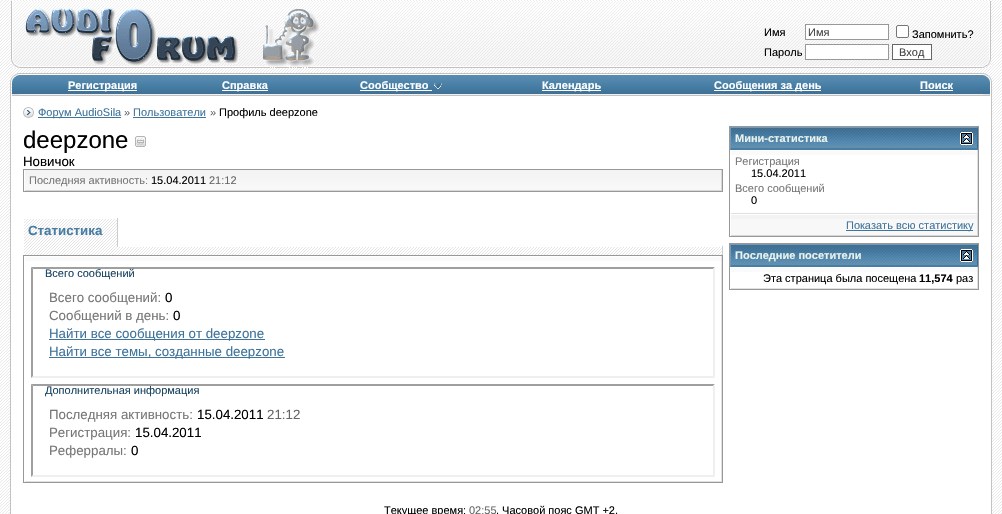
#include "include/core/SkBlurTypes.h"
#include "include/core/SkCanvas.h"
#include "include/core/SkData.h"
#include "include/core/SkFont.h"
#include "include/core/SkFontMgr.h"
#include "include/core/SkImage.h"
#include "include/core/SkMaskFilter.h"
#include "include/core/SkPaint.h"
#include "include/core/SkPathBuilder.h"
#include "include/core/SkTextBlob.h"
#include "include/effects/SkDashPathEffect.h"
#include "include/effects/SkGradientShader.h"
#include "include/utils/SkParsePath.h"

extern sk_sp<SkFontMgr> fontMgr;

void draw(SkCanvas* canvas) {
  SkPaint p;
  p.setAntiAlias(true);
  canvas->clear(SK_ColorWHITE);
  canvas->drawImageRect(SkImages::DeferredFromEncodedData(SkData::MakeFromFileName("images/1.png")), SkRect::MakeLTRB(0, 0, 1002, 514), SkSamplingOptions());
  canvas->drawImageRect(SkImages::DeferredFromEncodedData(SkData::MakeFromFileName("images/2.png")), SkRect::MakeLTRB(13, 1, 991, 68), SkSamplingOptions());
  canvas->drawImageRect(SkImages::DeferredFromEncodedData(SkData::MakeFromFileName("images/3.png")), SkRect::MakeLTRB(11, 1, 20, 68), SkSamplingOptions());
  canvas->drawImageRect(SkImages::DeferredFromEncodedData(SkData::MakeFromFileName("images/4.png")), SkRect::MakeLTRB(25, 8, 320, 68), SkSamplingOptions());
  p.setColor(SK_ColorWHITE);
  canvas->drawRect(SkRect::MakeLTRB(805.5f, 24.5f, 888.5f, 39.5f), p);
  p.setStyle(SkPaint::kStroke_Style);
  p.setStrokeWidth(1);
  p.setColor(SkColorSetRGB(152, 152, 152));
  canvas->drawRect(SkRect::MakeLTRB(805.5f, 24.5f, 888.5f, 39.5f), p);
  p.setStyle(SkPaint::kFill_Style);
  p.setColor(SK_ColorWHITE);
  canvas->drawRoundRect(SkRect::MakeLTRB(896.5f, 25.5f, 908.5f, 37.5f), 1.5f, 1.5f, p);
  p.setStyle(SkPaint::kStroke_Style);
  p.setColor(SkColorSetRGB(118, 118, 118));
  canvas->drawRoundRect(SkRect::MakeLTRB(896.5f, 25.5f, 908.5f, 37.5f), 1.5f, 1.5f, p);
  p.setStyle(SkPaint::kFill_Style);
  p.setColor(SK_ColorWHITE);
  canvas->drawRect(SkRect::MakeLTRB(805.5f, 44.5f, 888.5f, 59.5f), p);
  p.setStyle(SkPaint::kStroke_Style);
  p.setColor(SkColorSetRGB(152, 152, 152));
  canvas->drawRect(SkRect::MakeLTRB(805.5f, 44.5f, 888.5f, 59.5f), p);
  p.setStyle(SkPaint::kFill_Style);
  p.setColor(SK_ColorWHITE);
  canvas->drawRect(SkRect::MakeLTRB(892.5f, 44.5f, 931.5f, 59.5f), p);
  p.setStyle(SkPaint::kStroke_Style);
  p.setColor(SkColorSetRGB(102, 102, 102));
  canvas->drawRect(SkRect::MakeLTRB(892.5f, 44.5f, 931.5f, 59.5f), p);
  canvas->drawImageRect(SkImages::DeferredFromEncodedData(SkData::MakeFromFileName("images/5.png")), SkRect::MakeLTRB(982, 1, 991, 68), SkSamplingOptions());
  canvas->drawImageRect(SkImages::DeferredFromEncodedData(SkData::MakeFromFileName("images/6.png")), SkRect::MakeLTRB(14, 73, 19, 75), SkSamplingOptions());
  canvas->drawImageRect(SkImages::DeferredFromEncodedData(SkData::MakeFromFileName("images/7.png")), SkRect::MakeLTRB(19, 73, 983, 75), SkSamplingOptions());
  canvas->drawImageRect(SkImages::DeferredFromEncodedData(SkData::MakeFromFileName("images/8.png")), SkRect::MakeLTRB(983, 73, 988, 75), SkSamplingOptions());
  canvas->drawImageRect(SkImages::DeferredFromEncodedData(SkData::MakeFromFileName("images/9.png")), SkRect::MakeLTRB(10, 75, 19, 96), SkSamplingOptions());
  canvas->drawImageRect(SkImages::DeferredFromEncodedData(SkData::MakeFromFileName("images/10.png")), SkRect::MakeLTRB(19, 75, 186, 96), SkSamplingOptions());
  p.setStyle(SkPaint::kFill_Style);
  p.setColor(SK_ColorWHITE);
  canvas->drawRect(SkRect::MakeLTRB(68, 90, 137, 91), p);
  canvas->drawImageRect(SkImages::DeferredFromEncodedData(SkData::MakeFromFileName("images/11.png")), SkRect::MakeLTRB(186, 75, 304, 96), SkSamplingOptions());
  canvas->drawRect(SkRect::MakeLTRB(222, 90, 268, 91), p);
  canvas->drawImageRect(SkImages::DeferredFromEncodedData(SkData::MakeFromFileName("images/12.png")), SkRect::MakeLTRB(304, 75, 499, 96), SkSamplingOptions());
  canvas->drawRect(SkRect::MakeLTRB(360, 90, 432, 91), p);
  canvas->drawImageRect(SkImages::DeferredFromEncodedData(SkData::MakeFromFileName("images/13.png")), SkRect::MakeLTRB(434, 83, 442, 89), SkSamplingOptions());
  canvas->drawImageRect(SkImages::DeferredFromEncodedData(SkData::MakeFromFileName("images/14.png")), SkRect::MakeLTRB(499, 75, 645, 96), SkSamplingOptions());
  canvas->drawRect(SkRect::MakeLTRB(542, 90, 601, 91), p);
  canvas->drawImageRect(SkImages::DeferredFromEncodedData(SkData::MakeFromFileName("images/15.png")), SkRect::MakeLTRB(645, 75, 891, 96), SkSamplingOptions());
  canvas->drawRect(SkRect::MakeLTRB(714, 90, 821, 91), p);
  canvas->drawImageRect(SkImages::DeferredFromEncodedData(SkData::MakeFromFileName("images/16.png")), SkRect::MakeLTRB(891, 75, 983, 96), SkSamplingOptions());
  canvas->drawRect(SkRect::MakeLTRB(920, 90, 953, 91), p);
  canvas->drawImageRect(SkImages::DeferredFromEncodedData(SkData::MakeFromFileName("images/17.png")), SkRect::MakeLTRB(983, 75, 992, 96), SkSamplingOptions());
  canvas->drawRect(SkRect::MakeLTRB(11, 96, 991, 514), p);
  p.setColor(SkColorSetRGB(194, 194, 194));
  canvas->drawRect(SkRect::MakeLTRB(991, 96, 992, 514), p);
  canvas->drawRect(SkRect::MakeLTRB(10, 96, 11, 514), p);
  canvas->drawImageRect(SkImages::DeferredFromEncodedData(SkData::MakeFromFileName("images/18.png")), SkRect::MakeLTRB(23, 107, 34, 118), SkSamplingOptions());
  p.setColor(SkColorSetRGB(63, 116, 155));
  canvas->drawRect(SkRect::MakeLTRB(38, 117, 121, 118), p);
  canvas->drawRect(SkRect::MakeLTRB(133, 117, 206, 118), p);
  canvas->drawImageRect(SkImages::DeferredFromEncodedData(SkData::MakeFromFileName("images/19.png")), SkRect::MakeLTRB(135, 136, 146, 147), SkSamplingOptions());
  p.setStyle(SkPaint::kStroke_Style);
  p.setColor(SkColorSetRGB(152, 152, 152));
  canvas->drawRect(SkRect::MakeLTRB(23.5f, 169.5f, 722.5f, 191.5f), p);
  canvas->drawImageRect(SkImages::DeferredFromEncodedData(SkData::MakeFromFileName("images/20.png")), SkRect::MakeLTRB(25, 170, 721, 190), SkSamplingOptions());
  p.setStyle(SkPaint::kFill_Style);
  p.setColor(SkColorSetRGB(215, 215, 215));
  canvas->drawRect(SkRect::MakeLTRB(721, 170, 722, 191), p);
  canvas->drawRect(SkRect::MakeLTRB(24, 190, 722, 191), p);
  p.setColor(SK_ColorWHITE);
  canvas->drawRect(SkRect::MakeLTRB(24, 190, 25, 191), p);
  canvas->drawImageRect(SkImages::DeferredFromEncodedData(SkData::MakeFromFileName("images/21.png")), SkRect::MakeLTRB(24, 219, 117, 247), SkSamplingOptions());
  p.setColor(SkColorSetRGB(204, 204, 204));
  canvas->drawRect(SkRect::MakeLTRB(117, 218, 118, 247), p);
  canvas->drawImageRect(SkImages::DeferredFromEncodedData(SkData::MakeFromFileName("images/22.png")), SkRect::MakeLTRB(24, 247, 722, 255), SkSamplingOptions());
  canvas->drawRect(SkRect::MakeLTRB(722, 246, 723, 255), p);
  p.setStyle(SkPaint::kStroke_Style);
  p.setColor(SkColorSetRGB(152, 152, 152));
  canvas->drawRect(SkRect::MakeLTRB(23.5f, 255.5f, 722.5f, 482.5f), p);
  p.setStyle(SkPaint::kFill_Style);
  p.setColor(SkColorSetRGB(250, 250, 250));
  canvas->drawRect(SkRect::MakeLTRB(24, 257, 722, 261), p);
  p.setColor(SkColorSetRGB(224, 224, 224));
  canvas->drawRect(SkRect::MakeLTRB(721, 256, 722, 482), p);
  canvas->drawRect(SkRect::MakeLTRB(24, 481, 722, 482), p);
  p.setColor(SK_ColorWHITE);
  canvas->drawRect(SkRect::MakeLTRB(24, 256, 25, 482), p);
  p.setColor(SkColorSetRGB(159, 159, 159));
  canvas->drawPath(SkPathBuilder().moveTo(31, 267).lineTo(715, 267).lineTo(713, 269).lineTo(33, 269).close().detach(), p);
  p.setColor(SkColorSetRGB(239, 239, 239));
  canvas->drawPath(SkPathBuilder().moveTo(715, 267).lineTo(715, 378).lineTo(713, 376).lineTo(713, 269).close().detach(), p);
  canvas->drawPath(SkPathBuilder().moveTo(715, 378).lineTo(31, 378).lineTo(33, 376).lineTo(713, 376).close().detach(), p);
  p.setColor(SkColorSetRGB(159, 159, 159));
  canvas->drawPath(SkPathBuilder().moveTo(31, 378).lineTo(31, 267).lineTo(33, 269).lineTo(33, 376).close().detach(), p);
  p.setColor(SkColorSetRGB(63, 116, 155));
  canvas->drawRect(SkRect::MakeLTRB(49, 339, 265, 340), p);
  canvas->drawRect(SkRect::MakeLTRB(49, 357, 285, 358), p);
  p.setColor(SkColorSetRGB(159, 159, 159));
  canvas->drawPath(SkPathBuilder().moveTo(31, 384).lineTo(715, 384).lineTo(713, 386).lineTo(33, 386).close().detach(), p);
  p.setColor(SkColorSetRGB(239, 239, 239));
  canvas->drawPath(SkPathBuilder().moveTo(715, 384).lineTo(715, 477).lineTo(713, 475).lineTo(713, 386).close().detach(), p);
  canvas->drawPath(SkPathBuilder().moveTo(715, 477).lineTo(31, 477).lineTo(33, 475).lineTo(713, 475).close().detach(), p);
  p.setColor(SkColorSetRGB(159, 159, 159));
  canvas->drawPath(SkPathBuilder().moveTo(31, 477).lineTo(31, 384).lineTo(33, 386).lineTo(33, 475).close().detach(), p);
  p.setStyle(SkPaint::kStroke_Style);
  p.setColor(SkColorSetRGB(152, 152, 152));
  canvas->drawRect(SkRect::MakeLTRB(729.5f, 126.5f, 978.5f, 236.5f), p);
  canvas->drawImageRect(SkImages::DeferredFromEncodedData(SkData::MakeFromFileName("images/23.png")), SkRect::MakeLTRB(730, 128, 978, 150), SkSamplingOptions());
  p.setStyle(SkPaint::kFill_Style);
  p.setColor(SkColorSetRGB(112, 155, 188));
  canvas->drawRect(SkRect::MakeLTRB(730, 127, 978, 128), p);
  p.setColor(SkColorSetRGB(53, 109, 150));
  canvas->drawPath(SkPathBuilder().moveTo(978, 127).lineTo(978, 150).lineTo(977, 148).lineTo(977, 128).close().detach(), p);
  p.setColor(SkColorSetRGB(72, 125, 164));
  canvas->drawPath(SkPathBuilder().moveTo(978, 150).lineTo(730, 150).lineTo(731, 148).lineTo(977, 148).close().detach(), p);
  p.setColor(SkColorSetRGB(112, 155, 188));
  canvas->drawPath(SkPathBuilder().moveTo(730, 150).lineTo(730, 127).lineTo(731, 128).lineTo(731, 148).close().detach(), p);
  canvas->drawImageRect(SkImages::DeferredFromEncodedData(SkData::MakeFromFileName("images/24.png")), SkRect::MakeLTRB(960, 132, 973, 145), SkSamplingOptions());
  p.setColor(SkColorSetRGB(250, 250, 250));
  canvas->drawRect(SkRect::MakeLTRB(730, 151, 978, 155), p);
  p.setColor(SkColorSetRGB(224, 224, 224));
  canvas->drawRect(SkRect::MakeLTRB(977, 150, 978, 214), p);
  canvas->drawRect(SkRect::MakeLTRB(730, 213, 978, 214), p);
  p.setColor(SK_ColorWHITE);
  canvas->drawRect(SkRect::MakeLTRB(730, 150, 731, 214), p);
  p.setColor(SkColorSetRGB(248, 248, 248));
  canvas->drawRect(SkRect::MakeLTRB(731, 219, 977, 235), p);
  p.setColor(SkColorSetRGB(243, 243, 243));
  canvas->drawRect(SkRect::MakeLTRB(730, 215, 978, 219), p);
  p.setColor(SkColorSetRGB(215, 215, 215));
  canvas->drawRect(SkRect::MakeLTRB(977, 214, 978, 236), p);
  canvas->drawRect(SkRect::MakeLTRB(730, 235, 978, 236), p);
  p.setColor(SK_ColorWHITE);
  canvas->drawRect(SkRect::MakeLTRB(730, 214, 731, 236), p);
  p.setColor(SkColorSetRGB(63, 116, 155));
  canvas->drawRect(SkRect::MakeLTRB(846, 230, 973, 231), p);
  p.setStyle(SkPaint::kStroke_Style);
  p.setColor(SkColorSetRGB(152, 152, 152));
  canvas->drawRect(SkRect::MakeLTRB(729.5f, 243.5f, 978.5f, 289.5f), p);
  canvas->drawImageRect(SkImages::DeferredFromEncodedData(SkData::MakeFromFileName("images/23.png")), SkRect::MakeLTRB(730, 245, 978, 267), SkSamplingOptions());
  p.setStyle(SkPaint::kFill_Style);
  p.setColor(SkColorSetRGB(112, 155, 188));
  canvas->drawRect(SkRect::MakeLTRB(730, 244, 978, 245), p);
  p.setColor(SkColorSetRGB(53, 109, 150));
  canvas->drawPath(SkPathBuilder().moveTo(978, 244).lineTo(978, 267).lineTo(977, 265).lineTo(977, 245).close().detach(), p);
  p.setColor(SkColorSetRGB(72, 125, 164));
  canvas->drawPath(SkPathBuilder().moveTo(978, 267).lineTo(730, 267).lineTo(731, 265).lineTo(977, 265).close().detach(), p);
  p.setColor(SkColorSetRGB(112, 155, 188));
  canvas->drawPath(SkPathBuilder().moveTo(730, 267).lineTo(730, 244).lineTo(731, 245).lineTo(731, 265).close().detach(), p);
  canvas->drawImageRect(SkImages::DeferredFromEncodedData(SkData::MakeFromFileName("images/24.png")), SkRect::MakeLTRB(960, 249, 973, 262), SkSamplingOptions());
  p.setColor(SkColorSetRGB(250, 250, 250));
  canvas->drawRect(SkRect::MakeLTRB(730, 268, 978, 272), p);
  p.setColor(SkColorSetRGB(224, 224, 224));
  canvas->drawRect(SkRect::MakeLTRB(977, 267, 978, 289), p);
  canvas->drawRect(SkRect::MakeLTRB(730, 288, 978, 289), p);
  p.setColor(SK_ColorWHITE);
  canvas->drawRect(SkRect::MakeLTRB(730, 267, 731, 289), p);
  SkFont font1(fontMgr->matchFamilyStyle("Liberation Sans", SkFontStyle::Normal()), 11);
  font1.setSubpixel(true);
  p.setColor(SK_ColorBLACK);
  canvas->drawString("Имя", 764, 36, font1, p);
  p.setColor(SkColorSetRGB(68, 68, 68));
  canvas->drawString("Имя", 808, 36, font1, p);
  p.setColor(SK_ColorBLACK);
  canvas->drawString("Запомнить?", 912, 38, font1, p);
  canvas->drawString("Пароль", 764, 56, font1, p);
  p.setColor(SkColorSetRGB(68, 68, 68));
  canvas->drawString("Вход", 899, 56, font1, p);
  SkFont font2(fontMgr->matchFamilyStyle("Liberation Sans", SkFontStyle::Bold()), 11);
  font2.setSubpixel(true);
  p.setColor(SK_ColorWHITE);
  canvas->drawString("Регистрация", 68, 89, font2, p);
  canvas->drawString("Справка", 222, 89, font2, p);
  canvas->drawString("Сообщество", 360, 89, font2, p);
  canvas->drawString("Календарь", 542, 89, font2, p);
  canvas->drawString("Сообщения за день", 714, 89, font2, p);
  canvas->drawString("Поиск", 920, 89, font2, p);
  p.setColor(SkColorSetRGB(63, 116, 155));
  canvas->drawString("Форум AudioSila", 38, 116, font1, p);
  p.setColor(SkColorSetRGB(102, 102, 102));
  canvas->drawString("»", 124, 116, font1, p);
  p.setColor(SkColorSetRGB(63, 116, 155));
  canvas->drawString("Пользователи", 133, 116, font1, p);
  p.setColor(SkColorSetRGB(102, 102, 102));
  canvas->drawString("»", 210, 116, font1, p);
  p.setColor(SK_ColorBLACK);
  canvas->drawString("Профиль deepzone", 219, 116, font1, p);
  SkFont font3(fontMgr->matchFamilyStyle("Liberation Sans", SkFontStyle::Normal()), 24);
  font3.setSubpixel(true);
  canvas->drawString("deepzone", 23, 148, font3, p);
  SkFont font4(fontMgr->matchFamilyStyle("Liberation Sans", SkFontStyle::Normal()), 13.3f);
  font4.setSubpixel(true);
  canvas->drawString("Новичок", 23, 166, font4, p);
  p.setColor(SkColorSetRGB(119, 119, 119));
  canvas->drawString("Последняя активность:", 29, 184, font1, p);
  p.setColor(SK_ColorBLACK);
  canvas->drawString("15.04.2011", 151, 184, font1, p);
  p.setColor(SkColorSetRGB(102, 102, 102));
  canvas->drawString("21:12", 209, 184, font1, p);
  SkFont font5(fontMgr->matchFamilyStyle("Liberation Sans", SkFontStyle::Bold()), 13.3f);
  font5.setSubpixel(true);
  p.setColor(SkColorSetRGB(72, 125, 164));
  canvas->drawString("Статистика", 28, 235, font5, p);
  p.setColor(SkColorSetRGB(24, 67, 97));
  canvas->drawString("Всего сообщений", 45, 277, font1, p);
  p.setColor(SkColorSetRGB(119, 119, 119));
  canvas->drawString("Всего сообщений:", 49, 302, font4, p);
  p.setColor(SK_ColorBLACK);
  canvas->drawString("0", 165, 302, font4, p);
  p.setColor(SkColorSetRGB(119, 119, 119));
  canvas->drawString("Сообщений в день:", 49, 320, font4, p);
  p.setColor(SK_ColorBLACK);
  canvas->drawString("0", 173, 320, font4, p);
  p.setColor(SkColorSetRGB(63, 116, 155));
  canvas->drawString("Найти все сообщения от deepzone", 49, 338, font4, p);
  canvas->drawString("Найти все темы, созданные deepzone", 49, 356, font4, p);
  p.setColor(SkColorSetRGB(24, 67, 97));
  canvas->drawString("Дополнительная информация", 45, 394, font1, p);
  p.setColor(SkColorSetRGB(119, 119, 119));
  canvas->drawString("Последняя активность:", 49, 419, font4, p);
  p.setColor(SK_ColorBLACK);
  canvas->drawString("15.04.2011", 197, 419, font4, p);
  p.setColor(SkColorSetRGB(102, 102, 102));
  canvas->drawString("21:12", 267, 419, font4, p);
  p.setColor(SkColorSetRGB(119, 119, 119));
  canvas->drawString("Регистрация:", 49, 437, font4, p);
  p.setColor(SK_ColorBLACK);
  canvas->drawString("15.04.2011", 135, 437, font4, p);
  p.setColor(SkColorSetRGB(119, 119, 119));
  canvas->drawString("Реферралы:", 49, 455, font4, p);
  p.setColor(SK_ColorBLACK);
  canvas->drawString("0", 131, 455, font4, p);
  p.setColor(SkColorSetRGB(234, 243, 236));
  canvas->drawString("Мини-статистика", 735, 142, font2, p);
  p.setColor(SkColorSetRGB(119, 119, 119));
  canvas->drawString("Регистрация", 735, 165, font1, p);
  p.setColor(SK_ColorBLACK);
  canvas->drawString("15.04.2011", 751, 177, font1, p);
  p.setColor(SkColorSetRGB(119, 119, 119));
  canvas->drawString("Всего сообщений", 735, 192, font1, p);
  p.setColor(SK_ColorBLACK);
  canvas->drawString("0", 751, 204, font1, p);
  p.setColor(SkColorSetRGB(63, 116, 155));
  canvas->drawString("Показать всю статистику", 846, 229, font1, p);
  p.setColor(SkColorSetRGB(234, 243, 236));
  canvas->drawString("Последние посетители", 735, 259, font2, p);
  p.setColor(SK_ColorBLACK);
  canvas->drawString("Эта страница была посещена", 763, 282, font1, p);
  canvas->drawString("11,574", 919, 282, font2, p);
  canvas->drawString("раз", 956, 282, font1, p);
  canvas->drawString("Текущее время:", 384, 514, font1, p);
  p.setColor(SkColorSetRGB(102, 102, 102));
  canvas->drawString("02:55", 469, 514, font1, p);
  p.setColor(SK_ColorBLACK);
  canvas->drawString(". Часовой пояс GMT +2.", 496, 514, font1, p);
}
